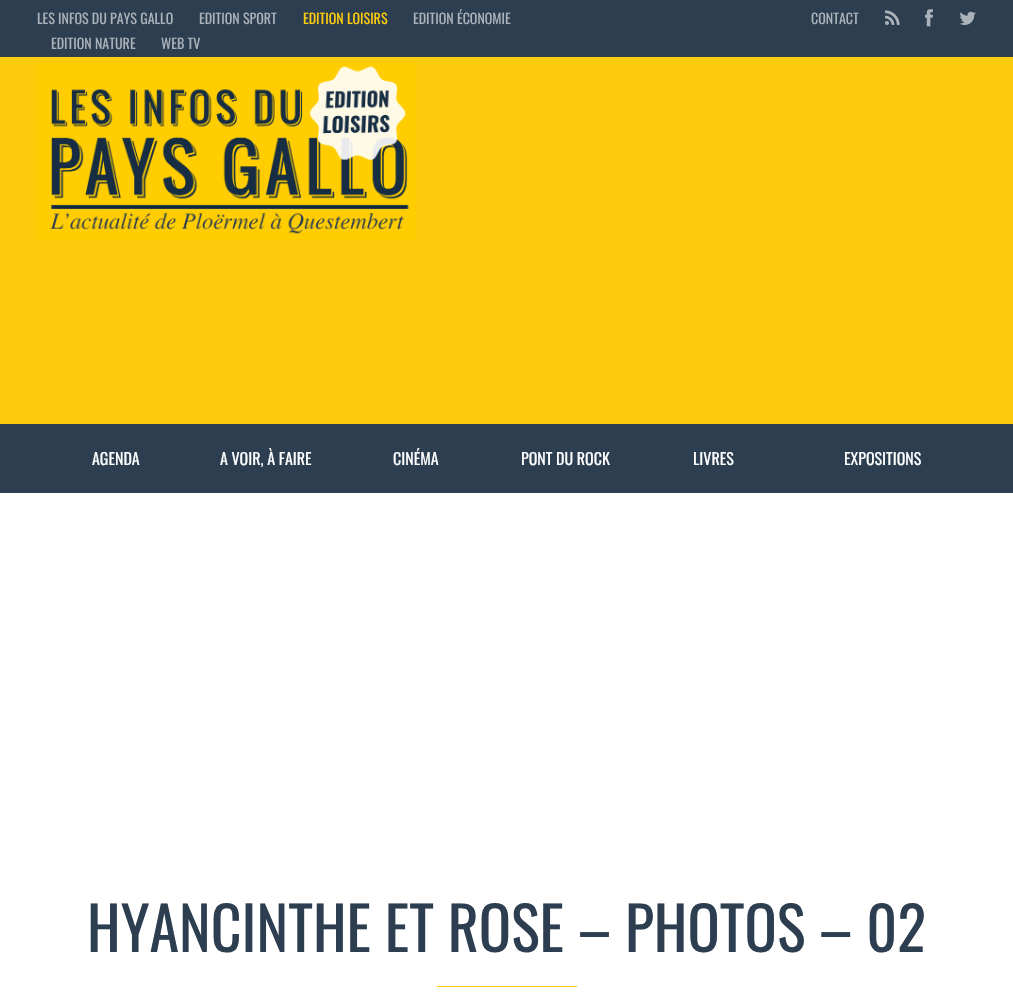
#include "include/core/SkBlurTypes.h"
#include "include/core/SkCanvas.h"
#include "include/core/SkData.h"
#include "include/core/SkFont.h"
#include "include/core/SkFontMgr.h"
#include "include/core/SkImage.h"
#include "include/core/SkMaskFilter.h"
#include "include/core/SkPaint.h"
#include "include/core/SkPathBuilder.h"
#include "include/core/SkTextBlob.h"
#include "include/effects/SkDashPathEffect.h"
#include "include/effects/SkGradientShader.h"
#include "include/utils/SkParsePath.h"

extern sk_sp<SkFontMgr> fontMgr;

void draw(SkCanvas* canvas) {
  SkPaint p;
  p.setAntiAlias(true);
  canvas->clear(SK_ColorWHITE);
  p.setColor(SkColorSetRGB(44, 62, 80));
  canvas->drawRect(SkRect::MakeLTRB(0, 0, 1013, 57), p);
  canvas->drawImageRect(SkImages::DeferredFromEncodedData(SkData::MakeFromFileName("images/1.png")), SkRect::MakeLTRB(885, 10, 900, 25), SkSamplingOptions());
  canvas->drawImageRect(SkImages::DeferredFromEncodedData(SkData::MakeFromFileName("images/2.png")), SkRect::MakeLTRB(925, 9, 933, 27), SkSamplingOptions());
  canvas->drawImageRect(SkImages::DeferredFromEncodedData(SkData::MakeFromFileName("images/3.png")), SkRect::MakeLTRB(959, 11, 976, 25), SkSamplingOptions());
  p.setColor(SkColorSetRGB(255, 204, 13));
  canvas->drawRect(SkRect::MakeLTRB(0, 57, 1013, 424), p);
  canvas->drawImageRect(SkImages::DeferredFromEncodedData(SkData::MakeFromFileName("images/4.png")), SkRect::MakeLTRB(37, 62, 416, 240), SkSamplingOptions());
  p.setColor(SkColorSetRGB(44, 62, 80));
  canvas->drawRect(SkRect::MakeLTRB(0, 424, 1013, 493), p);
  p.setColor(SkColorSetRGB(255, 204, 13));
  canvas->drawRect(SkRect::MakeLTRB(437, 986, 577, 987), p);
  SkFont font1(fontMgr->matchFamilyStyle("Oswald", SkFontStyle::Normal()), 14);
  font1.setSubpixel(true);
  p.setColor(SkColorSetRGB(171, 178, 185));
  canvas->drawString("LES INFOS DU PAYS GALLO", 37, 24, font1, p);
  canvas->drawString("EDITION SPORT", 199, 24, font1, p);
  p.setColor(SkColorSetRGB(255, 204, 13));
  canvas->drawString("EDITION LOISIRS", 303, 24, font1, p);
  p.setColor(SkColorSetRGB(171, 178, 185));
  canvas->drawString("EDITION ÉCONOMIE", 413, 24, font1, p);
  canvas->drawString("EDITION NATURE", 51, 49, font1, p);
  canvas->drawString("WEB TV", 161, 49, font1, p);
  canvas->drawString("CONTACT", 811, 24, font1, p);
  SkFont font2(fontMgr->matchFamilyStyle("Oswald", SkFontStyle::Normal()), 16);
  font2.setSubpixel(true);
  p.setColor(SK_ColorWHITE);
  canvas->drawString("AGENDA", 92, 465, font2, p);
  canvas->drawString("A VOIR, À FAIRE", 220, 465, font2, p);
  canvas->drawString("CINÉMA", 393, 465, font2, p);
  canvas->drawString("PONT DU ROCK", 521, 465, font2, p);
  canvas->drawString("LIVRES", 693, 465, font2, p);
  canvas->drawString("EXPOSITIONS", 844, 465, font2, p);
  SkFont font3(fontMgr->matchFamilyStyle("Oswald", SkFontStyle::Normal()), 60);
  font3.setSubpixel(true);
  p.setColor(SkColorSetRGB(44, 62, 80));
  canvas->drawString("HYANCINTHE ET ROSE – PHOTOS – 02", 87, 952, font3, p);
}
